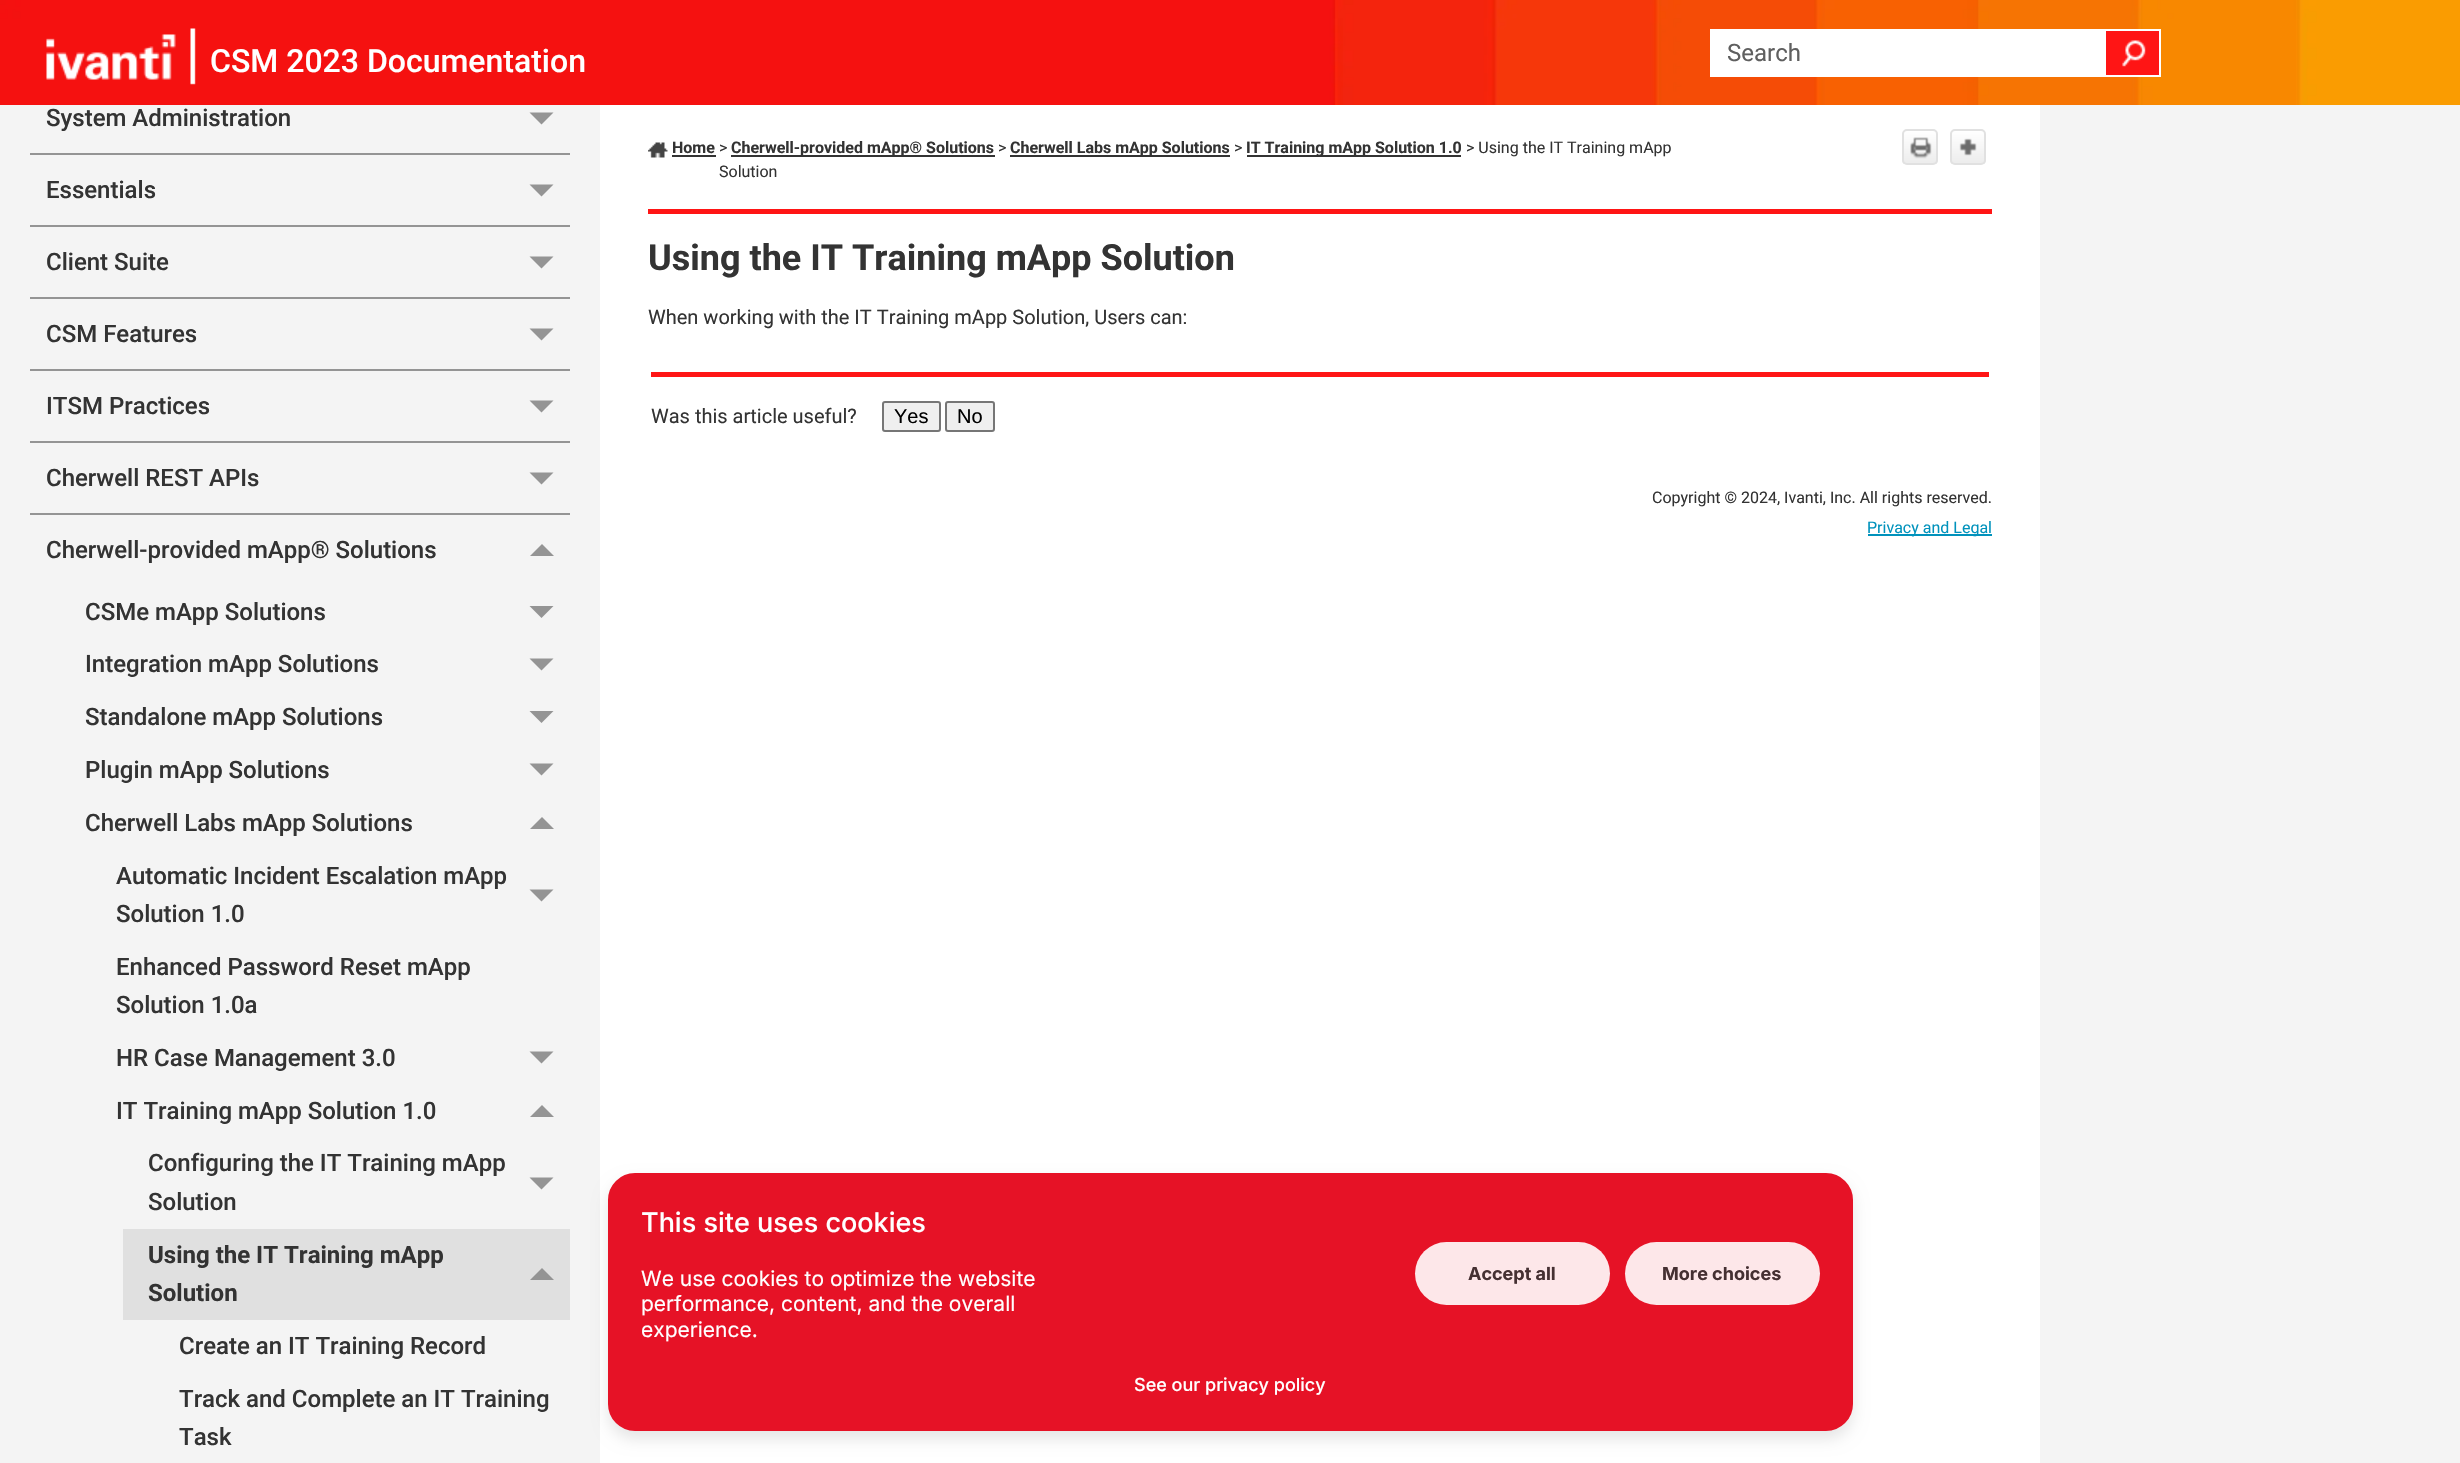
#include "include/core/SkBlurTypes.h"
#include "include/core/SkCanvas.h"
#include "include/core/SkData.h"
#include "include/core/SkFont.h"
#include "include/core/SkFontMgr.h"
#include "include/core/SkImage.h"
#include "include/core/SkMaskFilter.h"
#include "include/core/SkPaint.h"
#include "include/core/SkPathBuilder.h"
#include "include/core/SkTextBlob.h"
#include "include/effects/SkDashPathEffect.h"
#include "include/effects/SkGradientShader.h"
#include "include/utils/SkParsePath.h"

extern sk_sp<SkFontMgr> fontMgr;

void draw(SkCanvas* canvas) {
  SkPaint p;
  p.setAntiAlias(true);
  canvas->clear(SkColorSetRGB(244, 244, 244));
  canvas->drawImageRect(SkImages::DeferredFromEncodedData(SkData::MakeFromFileName("images/1.png")), SkRect::MakeLTRB(0, 0, 2460, 105), SkSamplingOptions());
  canvas->drawImageRect(SkImages::DeferredFromEncodedData(SkData::MakeFromFileName("images/2.png")), SkRect::MakeLTRB(46, 28, 196, 85), SkSamplingOptions());
  p.setColor(SK_ColorWHITE);
  canvas->drawRect(SkRect::MakeLTRB(1710, 29, 2106, 77), p);
  p.setColor(SkColorSetRGB(255, 21, 21));
  canvas->drawRect(SkRect::MakeLTRB(2106, 31, 2159, 75), p);
  canvas->drawImageRect(SkImages::DeferredFromEncodedData(SkData::MakeFromFileName("images/3.png")), SkRect::MakeLTRB(2122, 40, 2146, 67), SkSamplingOptions());
  p.setColor(SK_ColorWHITE);
  canvas->drawRect(SkRect::MakeLTRB(2106, 29, 2160, 31), p);
  canvas->drawRect(SkRect::MakeLTRB(2159, 29, 2161, 77), p);
  canvas->drawRect(SkRect::MakeLTRB(2106, 75, 2160, 77), p);
  canvas->drawRect(SkRect::MakeLTRB(600, 105, 2040, 1463), p);
  p.setColor(SkColorSetRGB(255, 21, 21));
  canvas->drawRect(SkRect::MakeLTRB(648, 209, 1992, 214), p);
  canvas->drawImageRect(SkImages::DeferredFromEncodedData(SkData::MakeFromFileName("images/4.png")), SkRect::MakeLTRB(648, 142, 668, 158), SkSamplingOptions());
  p.setColor(SkColorSetRGB(51, 51, 51));
  canvas->drawRect(SkRect::MakeLTRB(672, 155, 716, 157), p);
  canvas->drawRect(SkRect::MakeLTRB(731, 155, 995, 157), p);
  canvas->drawRect(SkRect::MakeLTRB(1010, 155, 1230, 157), p);
  canvas->drawRect(SkRect::MakeLTRB(1247, 155, 1461, 157), p);
  canvas->save();
  canvas->clipPath(SkPathBuilder().moveTo(1907, 129).lineTo(1933, 129).cubicTo(1936, 129, 1938, 131, 1938, 134).lineTo(1938, 160).cubicTo(1938, 163, 1936, 165, 1933, 165).lineTo(1907, 165).cubicTo(1904, 165, 1902, 163, 1902, 160).lineTo(1902, 134).cubicTo(1902, 131, 1904, 129, 1907, 129).close().detach(), true);
  {
    const SkColor colors[] = {SK_ColorWHITE, SkColorSetRGB(236, 236, 236)};
    const float stops[] = {0, 1};
    const SkPoint ends[] = {{1920, 131}, {1920, 164}};
    p.setShader(SkGradientShader::MakeLinear(ends, colors, stops, 2, SkTileMode::kClamp));
    p.setAlpha(255);
  }
  canvas->drawRect(SkRect::MakeLTRB(1902, 131, 1938, 164), p);
  canvas->restore();
  p.setStyle(SkPaint::kStroke_Style);
  p.setStrokeWidth(2);
  p.setShader(nullptr);
  p.setColor(SkColorSetRGB(225, 225, 225));
  canvas->drawRoundRect(SkRect::MakeLTRB(1903, 130, 1937, 164), 4, 4, p);
  canvas->drawImageRect(SkImages::DeferredFromEncodedData(SkData::MakeFromFileName("images/5.png")), SkRect::MakeLTRB(1910, 137, 1932, 159), SkSamplingOptions());
  canvas->save();
  canvas->clipPath(SkPathBuilder().moveTo(1955, 129).lineTo(1981, 129).cubicTo(1984, 129, 1986, 131, 1986, 134).lineTo(1986, 160).cubicTo(1986, 163, 1984, 165, 1981, 165).lineTo(1955, 165).cubicTo(1952, 165, 1950, 163, 1950, 160).lineTo(1950, 134).cubicTo(1950, 131, 1952, 129, 1955, 129).close().detach(), true);
  p.setStyle(SkPaint::kFill_Style);
  {
    const SkColor colors[] = {SK_ColorWHITE, SkColorSetRGB(236, 236, 236)};
    const float stops[] = {0, 1};
    const SkPoint ends[] = {{1968, 131}, {1968, 164}};
    p.setShader(SkGradientShader::MakeLinear(ends, colors, stops, 2, SkTileMode::kClamp));
    p.setAlpha(255);
  }
  canvas->drawRect(SkRect::MakeLTRB(1950, 131, 1986, 164), p);
  canvas->restore();
  p.setStyle(SkPaint::kStroke_Style);
  p.setShader(nullptr);
  p.setColor(SkColorSetRGB(225, 225, 225));
  canvas->drawRoundRect(SkRect::MakeLTRB(1951, 130, 1985, 164), 4, 4, p);
  canvas->drawImageRect(SkImages::DeferredFromEncodedData(SkData::MakeFromFileName("images/6.png")), SkRect::MakeLTRB(1959, 138, 1977, 156), SkSamplingOptions());
  p.setStyle(SkPaint::kFill_Style);
  p.setColor(SkColorSetRGB(255, 21, 21));
  canvas->drawRect(SkRect::MakeLTRB(651, 372, 1989, 377), p);
  p.setColor(SkColorSetRGB(239, 239, 239));
  canvas->drawRoundRect(SkRect::MakeLTRB(883, 402, 940, 431), 2, 2, p);
  p.setStyle(SkPaint::kStroke_Style);
  p.setColor(SkColorSetRGB(118, 118, 118));
  canvas->drawRoundRect(SkRect::MakeLTRB(883, 402, 940, 431), 2, 2, p);
  p.setStyle(SkPaint::kFill_Style);
  p.setColor(SkColorSetRGB(239, 239, 239));
  canvas->drawRoundRect(SkRect::MakeLTRB(946, 402, 994, 431), 2, 2, p);
  p.setStyle(SkPaint::kStroke_Style);
  p.setColor(SkColorSetRGB(118, 118, 118));
  canvas->drawRoundRect(SkRect::MakeLTRB(946, 402, 994, 431), 2, 2, p);
  p.setStyle(SkPaint::kFill_Style);
  p.setColor(SkColorSetRGB(0, 146, 188));
  canvas->drawRect(SkRect::MakeLTRB(1868, 534, 1992, 536), p);
  p.setColor(SkColorSetRGB(148, 148, 148));
  canvas->drawPath(SkPathBuilder().moveTo(529.5f, 112.5f).lineTo(553.5f, 112.5f).lineTo(541.5f, 124.5f).close().detach(), p);
  canvas->drawRect(SkRect::MakeLTRB(30, 153, 570, 155), p);
  canvas->drawPath(SkPathBuilder().moveTo(529.5f, 184.5f).lineTo(553.5f, 184.5f).lineTo(541.5f, 196.5f).close().detach(), p);
  canvas->drawRect(SkRect::MakeLTRB(30, 225, 570, 227), p);
  canvas->drawPath(SkPathBuilder().moveTo(529.5f, 256.5f).lineTo(553.5f, 256.5f).lineTo(541.5f, 268.5f).close().detach(), p);
  canvas->drawRect(SkRect::MakeLTRB(30, 297, 570, 299), p);
  canvas->drawPath(SkPathBuilder().moveTo(529.5f, 328.5f).lineTo(553.5f, 328.5f).lineTo(541.5f, 340.5f).close().detach(), p);
  canvas->drawRect(SkRect::MakeLTRB(30, 369, 570, 371), p);
  canvas->drawPath(SkPathBuilder().moveTo(529.5f, 400.5f).lineTo(553.5f, 400.5f).lineTo(541.5f, 412.5f).close().detach(), p);
  canvas->drawRect(SkRect::MakeLTRB(30, 441, 570, 443), p);
  canvas->drawPath(SkPathBuilder().moveTo(529.5f, 472.5f).lineTo(553.5f, 472.5f).lineTo(541.5f, 484.5f).close().detach(), p);
  canvas->drawRect(SkRect::MakeLTRB(30, 513, 570, 515), p);
  canvas->drawPath(SkPathBuilder().moveTo(530, 556).lineTo(554, 556).lineTo(542, 544).close().detach(), p);
  canvas->drawPath(SkPathBuilder().moveTo(529.5f, 606).lineTo(553.5f, 606).lineTo(541.5f, 618).close().detach(), p);
  canvas->drawPath(SkPathBuilder().moveTo(529.5f, 658.5f).lineTo(553.5f, 658.5f).lineTo(541.5f, 670.5f).close().detach(), p);
  canvas->drawPath(SkPathBuilder().moveTo(529.5f, 711).lineTo(553.5f, 711).lineTo(541.5f, 723).close().detach(), p);
  canvas->drawPath(SkPathBuilder().moveTo(529.5f, 763.5f).lineTo(553.5f, 763.5f).lineTo(541.5f, 775.5f).close().detach(), p);
  canvas->drawPath(SkPathBuilder().moveTo(530, 829).lineTo(554, 829).lineTo(542, 817).close().detach(), p);
  canvas->drawPath(SkPathBuilder().moveTo(529.5f, 889.5f).lineTo(553.5f, 889.5f).lineTo(541.5f, 901.5f).close().detach(), p);
  canvas->drawPath(SkPathBuilder().moveTo(529.5f, 1051.5f).lineTo(553.5f, 1051.5f).lineTo(541.5f, 1063.5f).close().detach(), p);
  canvas->drawPath(SkPathBuilder().moveTo(530, 1117).lineTo(554, 1117).lineTo(542, 1105).close().detach(), p);
  canvas->drawPath(SkPathBuilder().moveTo(529.5f, 1177.5f).lineTo(553.5f, 1177.5f).lineTo(541.5f, 1189.5f).close().detach(), p);
  p.setColor(SkColorSetRGB(224, 224, 224));
  canvas->drawRect(SkRect::MakeLTRB(123, 1229, 570, 1320), p);
  p.setColor(SkColorSetRGB(148, 148, 148));
  canvas->drawPath(SkPathBuilder().moveTo(530, 1280).lineTo(554, 1280).lineTo(542, 1268).close().detach(), p);
  p.setColor(SkColorSetARGB(26, 0, 0, 0));
  p.setMaskFilter(SkMaskFilter::MakeBlur(kNormal_SkBlurStyle, 7.5f));
  canvas->drawRoundRect(SkRect::MakeLTRB(608, 1181, 1853, 1439), 27, 27, p);
  p.setMaskFilter(nullptr);
  p.setColor(SkColorSetRGB(230, 18, 38));
  canvas->drawRoundRect(SkRect::MakeLTRB(609, 1174, 1852, 1430), 26, 26, p);
  p.setStyle(SkPaint::kStroke_Style);
  canvas->drawRoundRect(SkRect::MakeLTRB(609, 1174, 1852, 1430), 26, 26, p);
  p.setStyle(SkPaint::kFill_Style);
  p.setColor(SkColorSetRGB(253, 231, 233));
  canvas->drawRoundRect(SkRect::MakeLTRB(1415, 1242, 1610, 1305), 31.5f, 31.5f, p);
  canvas->drawRoundRect(SkRect::MakeLTRB(1625, 1242, 1820, 1305), 31.5f, 31.5f, p);
  SkFont font1(fontMgr->matchFamilyStyle("Roboto", SkFontStyle::Normal()), 24);
  font1.setSubpixel(true);
  p.setColor(SkColorSetRGB(95, 95, 95));
  canvas->drawString("Search", 1727, 61, font1, p);
  SkFont font2(fontMgr->matchFamilyStyle("Roboto", SkFontStyle(500, SkFontStyle::kNormal_Width, SkFontStyle::kUpright_Slant)), 32);
  font2.setSubpixel(true);
  p.setColor(SK_ColorWHITE);
  canvas->drawString("CSM 2023 Documentation", 210, 72, font2, p);
  SkFont font3(fontMgr->matchFamilyStyle("Roboto", SkFontStyle::Bold()), 16);
  font3.setSubpixel(true);
  p.setColor(SkColorSetRGB(51, 51, 51));
  canvas->drawString("Home", 672, 153, font3, p);
  SkFont font4(fontMgr->matchFamilyStyle("Roboto", SkFontStyle::Normal()), 16);
  font4.setSubpixel(true);
  canvas->drawString(">", 719, 153, font4, p);
  canvas->drawString("Cherwell-provided mApp® Solutions", 731, 153, font3, p);
  canvas->drawString(">", 998, 153, font4, p);
  canvas->drawString("Cherwell Labs mApp Solutions", 1010, 153, font3, p);
  canvas->drawString(">", 1234, 153, font4, p);
  canvas->drawString("IT Training mApp Solution 1.0", 1246, 153, font3, p);
  canvas->drawString("> Using the IT Training mApp", 1466, 153, font4, p);
  canvas->drawString("Solution", 719, 177, font4, p);
  SkFont font5(fontMgr->matchFamilyStyle("Roboto", SkFontStyle::Bold()), 36);
  font5.setSubpixel(true);
  canvas->drawString("Using the IT Training mApp Solution", 648, 270, font5, p);
  SkFont font6(fontMgr->matchFamilyStyle("Roboto", SkFontStyle::Normal()), 20);
  font6.setSubpixel(true);
  canvas->drawString("When working with the IT Training mApp Solution, Users can:", 648, 324, font6, p);
  canvas->drawString("Was this article useful?", 651, 423, font6, p);
  SkFont font7(fontMgr->matchFamilyStyle("Liberation Sans", SkFontStyle::Normal()), 20);
  font7.setSubpixel(true);
  p.setColor(SK_ColorBLACK);
  canvas->drawString("Yes", 894, 423, font7, p);
  canvas->drawString("No", 957, 423, font7, p);
  p.setColor(SkColorSetRGB(51, 51, 51));
  canvas->drawString("Copyright © 2024, Ivanti, Inc. All rights reserved.", 1652, 503, font4, p);
  p.setColor(SkColorSetRGB(0, 146, 188));
  canvas->drawString("Privacy and Legal", 1867, 533, font4, p);
  SkFont font8(fontMgr->matchFamilyStyle("Roboto", SkFontStyle(500, SkFontStyle::kNormal_Width, SkFontStyle::kUpright_Slant)), 24);
  font8.setSubpixel(true);
  p.setColor(SkColorSetRGB(51, 51, 51));
  canvas->drawString("System Administration", 46, 126, font8, p);
  canvas->drawString("Essentials", 46, 198, font8, p);
  canvas->drawString("Client Suite", 46, 270, font8, p);
  canvas->drawString("CSM Features", 46, 342, font8, p);
  canvas->drawString("ITSM Practices", 46, 414, font8, p);
  canvas->drawString("Cherwell REST APIs", 46, 486, font8, p);
  canvas->drawString("Cherwell-provided mApp® Solutions", 46, 558, font8, p);
  canvas->drawString("CSMe mApp Solutions", 85, 620, font8, p);
  canvas->drawString("Integration mApp Solutions", 85, 672, font8, p);
  canvas->drawString("Standalone mApp Solutions", 85, 725, font8, p);
  canvas->drawString("Plugin mApp Solutions", 85, 778, font8, p);
  canvas->drawString("Cherwell Labs mApp Solutions", 85, 831, font8, p);
  canvas->drawString("Automatic Incident Escalation mApp", 116, 884, font8, p);
  canvas->drawString("Solution 1.0", 116, 922, font8, p);
  canvas->drawString("Enhanced Password Reset mApp", 116, 975, font8, p);
  canvas->drawString("Solution 1.0a", 116, 1013, font8, p);
  canvas->drawString("HR Case Management 3.0", 116, 1066, font8, p);
  canvas->drawString("IT Training mApp Solution 1.0", 116, 1119, font8, p);
  canvas->drawString("Configuring the IT Training mApp", 148, 1171, font8, p);
  canvas->drawString("Solution", 148, 1210, font8, p);
  SkFont font9(fontMgr->matchFamilyStyle("Roboto", SkFontStyle::Bold()), 24);
  font9.setSubpixel(true);
  canvas->drawString("Using the IT Training mApp", 148, 1263, font9, p);
  canvas->drawString("Solution", 148, 1301, font9, p);
  canvas->drawString("Create an IT Training Record", 179, 1354, font8, p);
  canvas->drawString("Track and Complete an IT Training", 179, 1407, font8, p);
  canvas->drawString("Task", 179, 1445, font8, p);
  SkFont font10(fontMgr->matchFamilyStyle("Inter", SkFontStyle(500, SkFontStyle::kNormal_Width, SkFontStyle::kUpright_Slant)), 27);
  font10.setSubpixel(true);
  p.setColor(SK_ColorWHITE);
  canvas->drawString("This site uses cookies", 641, 1232, font10, p);
  SkFont font11(fontMgr->matchFamilyStyle("Inter", SkFontStyle::Normal()), 21);
  font11.setSubpixel(true);
  canvas->drawString("We use cookies to optimize the website", 641, 1286, font11, p);
  canvas->drawString("performance, content, and the overall", 641, 1311, font11, p);
  canvas->drawString("experience.", 641, 1337, font11, p);
  SkFont font12(fontMgr->matchFamilyStyle("Inter", SkFontStyle::Bold()), 18);
  font12.setSubpixel(true);
  p.setColor(SkColorSetRGB(69, 48, 50));
  canvas->drawString("Accept all", 1468, 1280, font12, p);
  canvas->drawString("More choices", 1662, 1280, font12, p);
  SkFont font13(fontMgr->matchFamilyStyle("Inter", SkFontStyle(500, SkFontStyle::kNormal_Width, SkFontStyle::kUpright_Slant)), 18);
  font13.setSubpixel(true);
  p.setColor(SK_ColorWHITE);
  canvas->drawString("See our privacy policy", 1134, 1391, font13, p);
}
